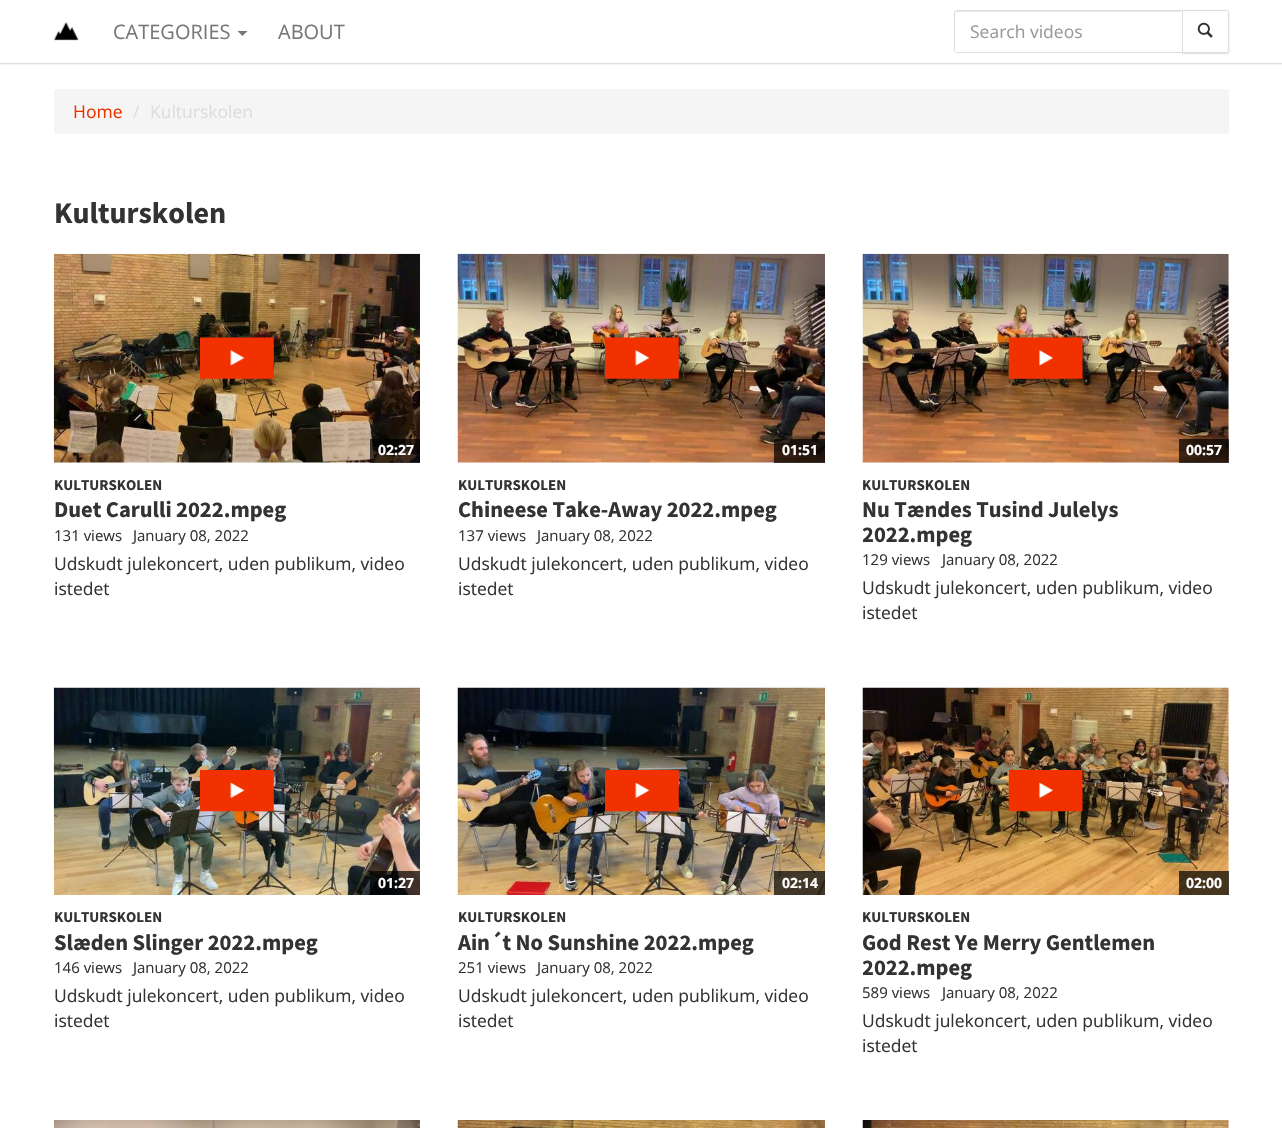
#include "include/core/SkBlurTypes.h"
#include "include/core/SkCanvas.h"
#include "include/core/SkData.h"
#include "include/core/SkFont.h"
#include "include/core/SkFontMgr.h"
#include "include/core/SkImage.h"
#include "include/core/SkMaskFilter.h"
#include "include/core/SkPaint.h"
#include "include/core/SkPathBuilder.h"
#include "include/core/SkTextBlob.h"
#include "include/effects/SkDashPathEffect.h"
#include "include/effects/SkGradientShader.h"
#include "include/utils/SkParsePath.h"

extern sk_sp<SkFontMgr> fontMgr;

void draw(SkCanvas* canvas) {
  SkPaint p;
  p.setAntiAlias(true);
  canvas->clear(SK_ColorWHITE);
  canvas->save();
  canvas->clipRect(SkRect::MakeLTRB(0, 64, 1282, 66));
  p.setColor(SkColorSetRGB(221, 221, 221));
  p.setMaskFilter(SkMaskFilter::MakeBlur(kNormal_SkBlurStyle, 1));
  canvas->drawRect(SkRect::MakeLTRB(0, 0, 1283, 64), p);
  p.setMaskFilter(nullptr);
  canvas->restore();
  canvas->drawRect(SkRect::MakeLTRB(0, 63, 1282, 64), p);
  canvas->drawImageRect(SkImages::DeferredFromEncodedData(SkData::MakeFromFileName("images/1.png")), SkRect::MakeLTRB(53, 22, 79, 41), SkSamplingOptions());
  p.setColor(SkColorSetRGB(119, 119, 119));
  canvas->drawPath(SkPathBuilder().moveTo(237.5f, 31).lineTo(247.5f, 31).lineTo(242.5f, 36).close().detach(), p);
  p.setColor(SkColorSetRGB(221, 221, 221));
  p.setMaskFilter(SkMaskFilter::MakeBlur(kNormal_SkBlurStyle, 1));
  canvas->drawRoundRect(SkRect::MakeLTRB(1181, 11, 1229, 54), 2.5f, 2.5f, p);
  p.setMaskFilter(nullptr);
  p.setColor(SK_ColorWHITE);
  canvas->drawPath(SkPathBuilder().moveTo(1181.5f, 10.5f).lineTo(1226.5f, 10.5f).cubicTo(1227.5f, 10.5f, 1228.5f, 11.5f, 1228.5f, 12.5f).lineTo(1228.5f, 50.5f).cubicTo(1228.5f, 51.5f, 1227.5f, 52.5f, 1226.5f, 52.5f).lineTo(1181.5f, 52.5f).close().detach(), p);
  p.setStyle(SkPaint::kStroke_Style);
  p.setStrokeWidth(1);
  p.setColor(SkColorSetRGB(221, 221, 221));
  canvas->drawPath(SkPathBuilder().moveTo(1181.5f, 10.5f).lineTo(1226.5f, 10.5f).cubicTo(1227.5f, 10.5f, 1228.5f, 11.5f, 1228.5f, 12.5f).lineTo(1228.5f, 50.5f).cubicTo(1228.5f, 51.5f, 1227.5f, 52.5f, 1226.5f, 52.5f).lineTo(1181.5f, 52.5f).close().detach(), p);
  p.setStyle(SkPaint::kFill_Style);
  p.setColor(SK_ColorWHITE);
  canvas->drawPath(SkPathBuilder().moveTo(956.5f, 10).lineTo(1183, 10).lineTo(1183, 53).lineTo(956.5f, 53).cubicTo(955, 53, 954, 52, 954, 50.5f).lineTo(954, 12.5f).cubicTo(954, 11, 955, 10, 956.5f, 10).close().detach(), p);
  p.setColor(SkColorSetRGB(236, 236, 236));
  canvas->drawPath(SkPathBuilder().moveTo(956, 12).lineTo(1181, 12).lineTo(1181, 11).lineTo(956, 11).cubicTo(955, 11, 955, 12, 955, 13).close().detach(), p);
  p.setStyle(SkPaint::kStroke_Style);
  p.setColor(SkColorSetRGB(221, 221, 221));
  canvas->drawPath(SkPathBuilder().moveTo(956.5f, 10.5f).lineTo(1182.5f, 10.5f).lineTo(1182.5f, 52.5f).lineTo(956.5f, 52.5f).cubicTo(955.5f, 52.5f, 954.5f, 51.5f, 954.5f, 50.5f).lineTo(954.5f, 12.5f).cubicTo(954.5f, 11.5f, 955.5f, 10.5f, 956.5f, 10.5f).close().detach(), p);
  canvas->drawImageRect(SkImages::DeferredFromEncodedData(SkData::MakeFromFileName("images/2.png")), SkRect::MakeLTRB(1197, 22, 1213, 38), SkSamplingOptions());
  p.setStyle(SkPaint::kFill_Style);
  p.setColor(SkColorSetRGB(245, 245, 245));
  canvas->drawRoundRect(SkRect::MakeLTRB(54, 89, 1229, 134), 2.5f, 2.5f, p);
  canvas->drawImageRect(SkImages::DeferredFromEncodedData(SkData::MakeFromFileName("images/3.png")), SkRect::MakeLTRB(53, 253, 420, 463), SkSamplingOptions());
  canvas->drawImageRect(SkImages::DeferredFromEncodedData(SkData::MakeFromFileName("images/4.png")), SkRect::MakeLTRB(200, 337, 274, 379), SkSamplingOptions());
  p.setColor(SkColorSetARGB(179, 0, 0, 0));
  canvas->drawRect(SkRect::MakeLTRB(370, 439, 420, 463), p);
  canvas->drawImageRect(SkImages::DeferredFromEncodedData(SkData::MakeFromFileName("images/5.png")), SkRect::MakeLTRB(457, 253, 825, 463), SkSamplingOptions());
  canvas->drawImageRect(SkImages::DeferredFromEncodedData(SkData::MakeFromFileName("images/6.png")), SkRect::MakeLTRB(605, 337, 679, 379), SkSamplingOptions());
  canvas->drawRect(SkRect::MakeLTRB(774, 439, 825, 463), p);
  canvas->drawImageRect(SkImages::DeferredFromEncodedData(SkData::MakeFromFileName("images/7.png")), SkRect::MakeLTRB(862, 253, 1229, 463), SkSamplingOptions());
  canvas->drawImageRect(SkImages::DeferredFromEncodedData(SkData::MakeFromFileName("images/8.png")), SkRect::MakeLTRB(1008, 337, 1083, 379), SkSamplingOptions());
  canvas->drawRect(SkRect::MakeLTRB(1179, 439, 1229, 463), p);
  canvas->drawImageRect(SkImages::DeferredFromEncodedData(SkData::MakeFromFileName("images/9.png")), SkRect::MakeLTRB(53, 687, 420, 895), SkSamplingOptions());
  canvas->drawImageRect(SkImages::DeferredFromEncodedData(SkData::MakeFromFileName("images/10.png")), SkRect::MakeLTRB(200, 770, 274, 812), SkSamplingOptions());
  canvas->drawRect(SkRect::MakeLTRB(370, 871, 420, 895), p);
  canvas->drawImageRect(SkImages::DeferredFromEncodedData(SkData::MakeFromFileName("images/11.png")), SkRect::MakeLTRB(457, 687, 825, 895), SkSamplingOptions());
  canvas->drawImageRect(SkImages::DeferredFromEncodedData(SkData::MakeFromFileName("images/12.png")), SkRect::MakeLTRB(605, 770, 679, 812), SkSamplingOptions());
  canvas->drawRect(SkRect::MakeLTRB(774, 871, 825, 895), p);
  canvas->drawImageRect(SkImages::DeferredFromEncodedData(SkData::MakeFromFileName("images/13.png")), SkRect::MakeLTRB(862, 687, 1229, 895), SkSamplingOptions());
  canvas->drawImageRect(SkImages::DeferredFromEncodedData(SkData::MakeFromFileName("images/14.png")), SkRect::MakeLTRB(1008, 770, 1083, 812), SkSamplingOptions());
  canvas->drawRect(SkRect::MakeLTRB(1179, 871, 1229, 895), p);
  canvas->drawImageRect(SkImages::DeferredFromEncodedData(SkData::MakeFromFileName("images/15.png")), SkRect::MakeLTRB(53, 1120, 420, 1128), SkSamplingOptions());
  canvas->drawImageRect(SkImages::DeferredFromEncodedData(SkData::MakeFromFileName("images/16.png")), SkRect::MakeLTRB(457, 1120, 825, 1128), SkSamplingOptions());
  canvas->drawImageRect(SkImages::DeferredFromEncodedData(SkData::MakeFromFileName("images/17.png")), SkRect::MakeLTRB(862, 1120, 1229, 1128), SkSamplingOptions());
  SkFont font1(fontMgr->matchFamilyStyle("Open Sans", SkFontStyle::Normal()), 20);
  font1.setSubpixel(true);
  p.setColor(SkColorSetRGB(119, 119, 119));
  canvas->drawString("CATEGORIES", 113, 39, font1, p);
  canvas->drawString("ABOUT", 278, 39, font1, p);
  SkFont font2(fontMgr->matchFamilyStyle("Open Sans", SkFontStyle::Normal()), 17.5f);
  font2.setSubpixel(true);
  p.setColor(SkColorSetRGB(153, 153, 153));
  canvas->drawString("Search videos", 970, 38, font2, p);
  p.setColor(SkColorSetRGB(233, 52, 0));
  canvas->drawString("Home", 73, 118, font2, p);
  p.setColor(SkColorSetRGB(221, 221, 221));
  canvas->drawString("/", 133, 118, font2, p);
  canvas->drawString("Kulturskolen", 150, 118, font2, p);
  SkFont font3(fontMgr->matchFamilyStyle("Source Sans Pro", SkFontStyle::Bold()), 30);
  font3.setSubpixel(true);
  p.setColor(SkColorSetRGB(51, 51, 51));
  canvas->drawString("Kulturskolen", 54, 223, font3, p);
  SkFont font4(fontMgr->matchFamilyStyle("Open Sans", SkFontStyle::Bold()), 14);
  font4.setSubpixel(true);
  p.setColor(SK_ColorWHITE);
  canvas->drawString("02:27", 378, 455, font4, p);
  SkFont font5(fontMgr->matchFamilyStyle("Source Sans Pro", SkFontStyle::Bold()), 15);
  font5.setSubpixel(true);
  p.setColor(SkColorSetRGB(51, 51, 51));
  canvas->drawString("KULTURSKOLEN", 54, 490, font5, p);
  SkFont font6(fontMgr->matchFamilyStyle("Source Sans Pro", SkFontStyle::Bold()), 22.5f);
  font6.setSubpixel(true);
  canvas->drawString("Duet Carulli 2022.mpeg", 54, 517, font6, p);
  SkFont font7(fontMgr->matchFamilyStyle("Open Sans", SkFontStyle::Normal()), 15);
  font7.setSubpixel(true);
  canvas->drawString("131 views", 54, 541, font7, p);
  canvas->drawString("January 08, 2022", 133, 541, font7, p);
  canvas->drawString("Udskudt julekoncert, uden publikum, video", 54, 570, font2, p);
  canvas->drawString("istedet", 54, 595, font2, p);
  p.setColor(SK_ColorWHITE);
  canvas->drawString("01:51", 782, 455, font4, p);
  p.setColor(SkColorSetRGB(51, 51, 51));
  canvas->drawString("KULTURSKOLEN", 458, 490, font5, p);
  canvas->drawString("Chineese Take-Away 2022.mpeg", 458, 517, font6, p);
  canvas->drawString("137 views", 458, 541, font7, p);
  canvas->drawString("January 08, 2022", 537, 541, font7, p);
  canvas->drawString("Udskudt julekoncert, uden publikum, video", 458, 570, font2, p);
  canvas->drawString("istedet", 458, 595, font2, p);
  p.setColor(SK_ColorWHITE);
  canvas->drawString("00:57", 1186, 455, font4, p);
  p.setColor(SkColorSetRGB(51, 51, 51));
  canvas->drawString("KULTURSKOLEN", 862, 490, font5, p);
  canvas->drawString("Nu Tændes Tusind Julelys", 862, 517, font6, p);
  canvas->save();
  canvas->clipRect(SkRect::MakeLTRB(863, 254, 1229, 639));
  canvas->drawString("2022.mpeg", 862, 542, font6, p);
  canvas->restore();
  canvas->drawString("129 views", 862, 565, font7, p);
  canvas->drawString("January 08, 2022", 942, 565, font7, p);
  canvas->drawString("Udskudt julekoncert, uden publikum, video", 862, 594, font2, p);
  canvas->drawString("istedet", 862, 619, font2, p);
  p.setColor(SK_ColorWHITE);
  canvas->drawString("01:27", 378, 888, font4, p);
  p.setColor(SkColorSetRGB(51, 51, 51));
  canvas->drawString("KULTURSKOLEN", 54, 922, font5, p);
  canvas->drawString("Slæden Slinger 2022.mpeg", 54, 950, font6, p);
  canvas->drawString("146 views", 54, 973, font7, p);
  canvas->drawString("January 08, 2022", 133, 973, font7, p);
  canvas->drawString("Udskudt julekoncert, uden publikum, video", 54, 1002, font2, p);
  canvas->drawString("istedet", 54, 1027, font2, p);
  p.setColor(SK_ColorWHITE);
  canvas->drawString("02:14", 782, 888, font4, p);
  p.setColor(SkColorSetRGB(51, 51, 51));
  canvas->drawString("KULTURSKOLEN", 458, 922, font5, p);
  canvas->drawString("Ain´t No Sunshine 2022.mpeg", 458, 950, font6, p);
  canvas->drawString("251 views", 458, 973, font7, p);
  canvas->drawString("January 08, 2022", 537, 973, font7, p);
  canvas->drawString("Udskudt julekoncert, uden publikum, video", 458, 1002, font2, p);
  canvas->drawString("istedet", 458, 1027, font2, p);
  p.setColor(SK_ColorWHITE);
  canvas->drawString("02:00", 1186, 888, font4, p);
  p.setColor(SkColorSetRGB(51, 51, 51));
  canvas->drawString("KULTURSKOLEN", 862, 922, font5, p);
  canvas->drawString("God Rest Ye Merry Gentlemen", 862, 950, font6, p);
  canvas->save();
  canvas->clipRect(SkRect::MakeLTRB(863, 688, 1229, 1071));
  canvas->drawString("2022.mpeg", 862, 975, font6, p);
  canvas->restore();
  canvas->drawString("589 views", 862, 998, font7, p);
  canvas->drawString("January 08, 2022", 942, 998, font7, p);
  canvas->drawString("Udskudt julekoncert, uden publikum, video", 862, 1027, font2, p);
  canvas->drawString("istedet", 862, 1052, font2, p);
}
